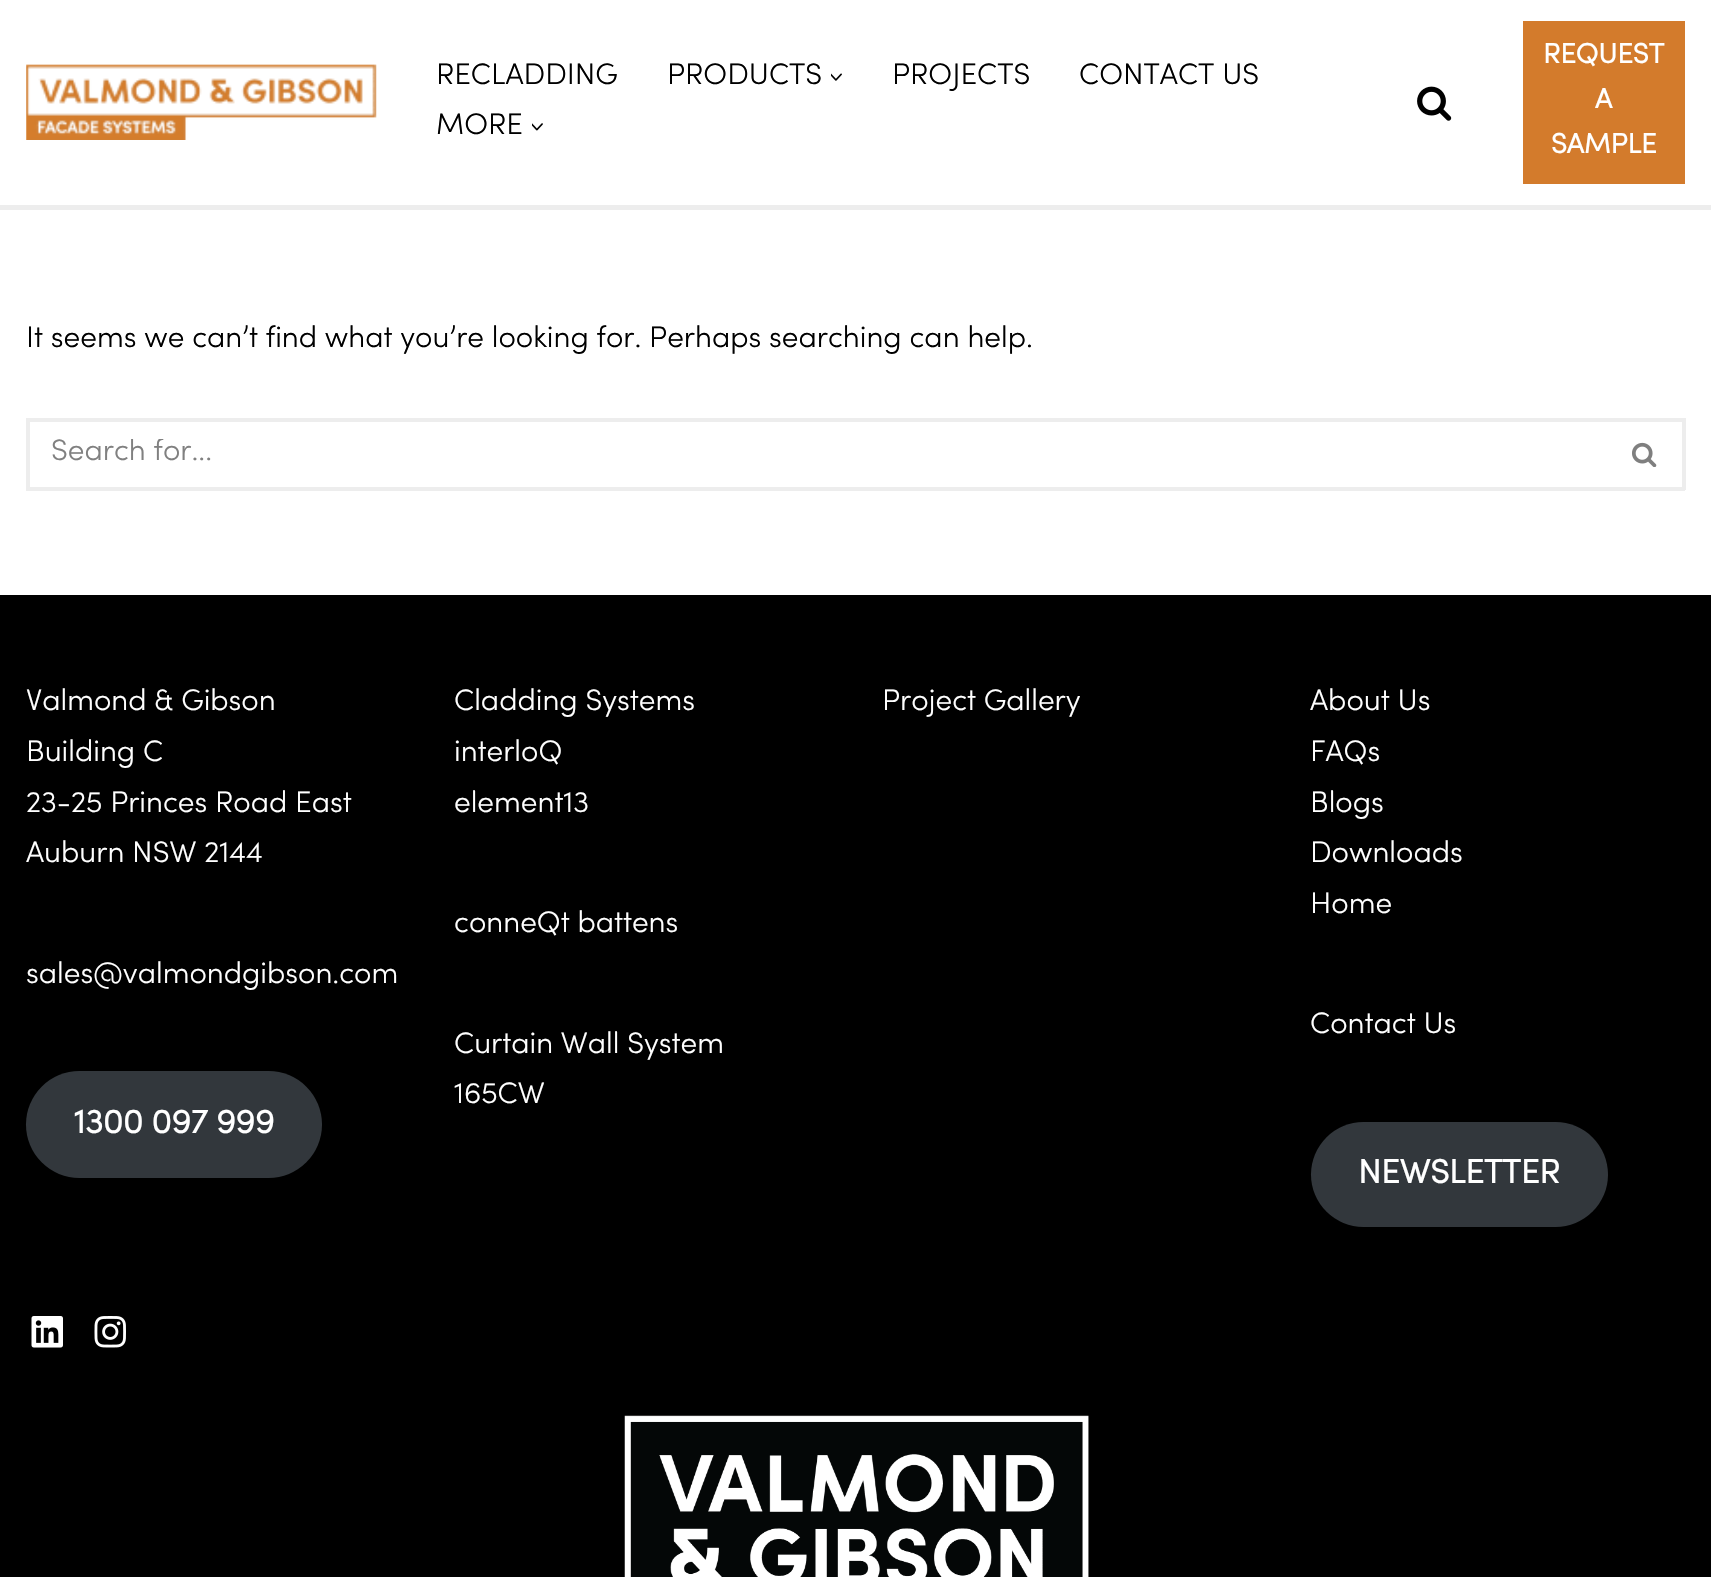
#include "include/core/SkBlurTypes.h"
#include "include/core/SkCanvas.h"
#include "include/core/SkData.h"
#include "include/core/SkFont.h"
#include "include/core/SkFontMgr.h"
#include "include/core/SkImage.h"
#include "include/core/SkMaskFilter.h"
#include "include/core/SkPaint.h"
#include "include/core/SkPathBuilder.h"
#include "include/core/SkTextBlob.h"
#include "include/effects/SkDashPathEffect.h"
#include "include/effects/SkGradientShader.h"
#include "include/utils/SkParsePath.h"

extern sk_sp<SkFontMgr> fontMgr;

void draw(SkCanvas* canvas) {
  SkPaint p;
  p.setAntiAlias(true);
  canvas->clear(SK_ColorWHITE);
  p.setColor(SkColorSetRGB(237, 237, 237));
  canvas->drawRect(SkRect::MakeLTRB(0, 205, 1711, 210), p);
  canvas->drawImageRect(SkImages::DeferredFromEncodedData(SkData::MakeFromFileName("images/1.png")), SkRect::MakeLTRB(26, 64, 377, 140), SkSamplingOptions());
  canvas->drawImageRect(SkImages::DeferredFromEncodedData(SkData::MakeFromFileName("images/2.png")), SkRect::MakeLTRB(831, 73, 842, 81), SkSamplingOptions());
  canvas->drawImageRect(SkImages::DeferredFromEncodedData(SkData::MakeFromFileName("images/3.png")), SkRect::MakeLTRB(532, 123, 543, 131), SkSamplingOptions());
  canvas->drawImageRect(SkImages::DeferredFromEncodedData(SkData::MakeFromFileName("images/4.png")), SkRect::MakeLTRB(1417, 86, 1452, 121), SkSamplingOptions());
  p.setColor(SkColorSetRGB(211, 123, 44));
  canvas->drawRect(SkRect::MakeLTRB(1523, 21, 1685, 184), p);
  p.setColor(SkColorSetRGB(237, 237, 237));
  canvas->drawRect(SkRect::MakeLTRB(26, 418, 1685, 422), p);
  canvas->drawRect(SkRect::MakeLTRB(26, 487, 1607, 491), p);
  canvas->drawRect(SkRect::MakeLTRB(26, 418, 30, 490), p);
  canvas->drawRect(SkRect::MakeLTRB(1682, 418, 1686, 490), p);
  canvas->drawRect(SkRect::MakeLTRB(1607, 487, 1685, 491), p);
  canvas->drawImageRect(SkImages::DeferredFromEncodedData(SkData::MakeFromFileName("images/5.png")), SkRect::MakeLTRB(1632, 442, 1657, 467), SkSamplingOptions());
  p.setColor(SK_ColorBLACK);
  canvas->drawRect(SkRect::MakeLTRB(0, 595, 1711, 1577), p);
  p.setColor(SkColorSetRGB(50, 55, 60));
  canvas->drawRoundRect(SkRect::MakeLTRB(26, 1071, 322, 1178), 53.5f, 53.5f, p);
  canvas->drawImageRect(SkImages::DeferredFromEncodedData(SkData::MakeFromFileName("images/6.png")), SkRect::MakeLTRB(31, 1316, 63, 1348), SkSamplingOptions());
  canvas->drawImageRect(SkImages::DeferredFromEncodedData(SkData::MakeFromFileName("images/7.png")), SkRect::MakeLTRB(94, 1316, 126, 1348), SkSamplingOptions());
  canvas->drawRoundRect(SkRect::MakeLTRB(1311, 1122, 1608, 1227), 52.5f, 52.5f, p);
  canvas->drawImageRect(SkImages::DeferredFromEncodedData(SkData::MakeFromFileName("images/8.png")), SkRect::MakeLTRB(624, 1415, 1089, 1577), SkSamplingOptions());
  SkFont font1(fontMgr->matchFamilyStyle("Sofia", SkFontStyle(300, SkFontStyle::kNormal_Width, SkFontStyle::kUpright_Slant)), 29.75f);
  font1.setSubpixel(true);
  p.setColor(SK_ColorBLACK);
  canvas->drawString("RECLADDING", 436, 84, font1, p);
  canvas->drawString("PRODUCTS", 667, 84, font1, p);
  canvas->drawString("PROJECTS", 892, 84, font1, p);
  canvas->drawString("CONTACT US", 1079, 84, font1, p);
  canvas->drawString("MORE", 436, 134, font1, p);
  SkFont font2(fontMgr->matchFamilyStyle("Sofia", SkFontStyle::Bold()), 28);
  font2.setSubpixel(true);
  p.setColor(SK_ColorWHITE);
  canvas->drawString("REQUEST", 1543, 63, font2, p);
  canvas->drawString("A", 1595, 108, font2, p);
  canvas->drawString("SAMPLE", 1551, 153, font2, p);
  p.setColor(SK_ColorBLACK);
  canvas->drawString("It seems we can’t find what you’re looking for. Perhaps searching can help.", 26, 347, font1, p);
  canvas->save();
  canvas->clipRect(SkRect::MakeLTRB(51, 439, 1558, 469));
  p.setColor(SkColorSetRGB(128, 128, 128));
  canvas->drawString("Search for...", 51, 460, font1, p);
  canvas->restore();
  p.setColor(SK_ColorWHITE);
  canvas->drawString("Valmond & Gibson", 26, 710, font1, p);
  canvas->drawString("Building C", 26, 761, font1, p);
  canvas->drawString("23-25 Princes Road East", 26, 812, font1, p);
  canvas->drawString("Auburn NSW 2144", 26, 862, font1, p);
  canvas->drawString("sales@valmondgibson.com", 26, 983, font1, p);
  SkFont font3(fontMgr->matchFamilyStyle("Sofia", SkFontStyle::Bold()), 33.5f);
  font3.setSubpixel(true);
  canvas->drawString("1300 097 999", 74, 1133, font3, p);
  canvas->drawString("Cladding Systems", 454, 710, font1, p);
  canvas->drawString("interloQ", 454, 761, font1, p);
  canvas->drawString("element13", 454, 812, font1, p);
  canvas->drawString("conneQt battens", 454, 932, font1, p);
  canvas->drawString("Curtain Wall System", 454, 1053, font1, p);
  canvas->drawString("165CW", 454, 1103, font1, p);
  canvas->drawString("Project Gallery", 882, 710, font1, p);
  canvas->drawString("About Us", 1310, 710, font1, p);
  canvas->drawString("FAQs", 1310, 761, font1, p);
  canvas->drawString("Blogs", 1310, 812, font1, p);
  canvas->drawString("Downloads", 1310, 862, font1, p);
  canvas->drawString("Home", 1310, 913, font1, p);
  canvas->drawString("Contact Us", 1310, 1033, font1, p);
  canvas->drawString("NEWSLETTER", 1358, 1183, font3, p);
}
